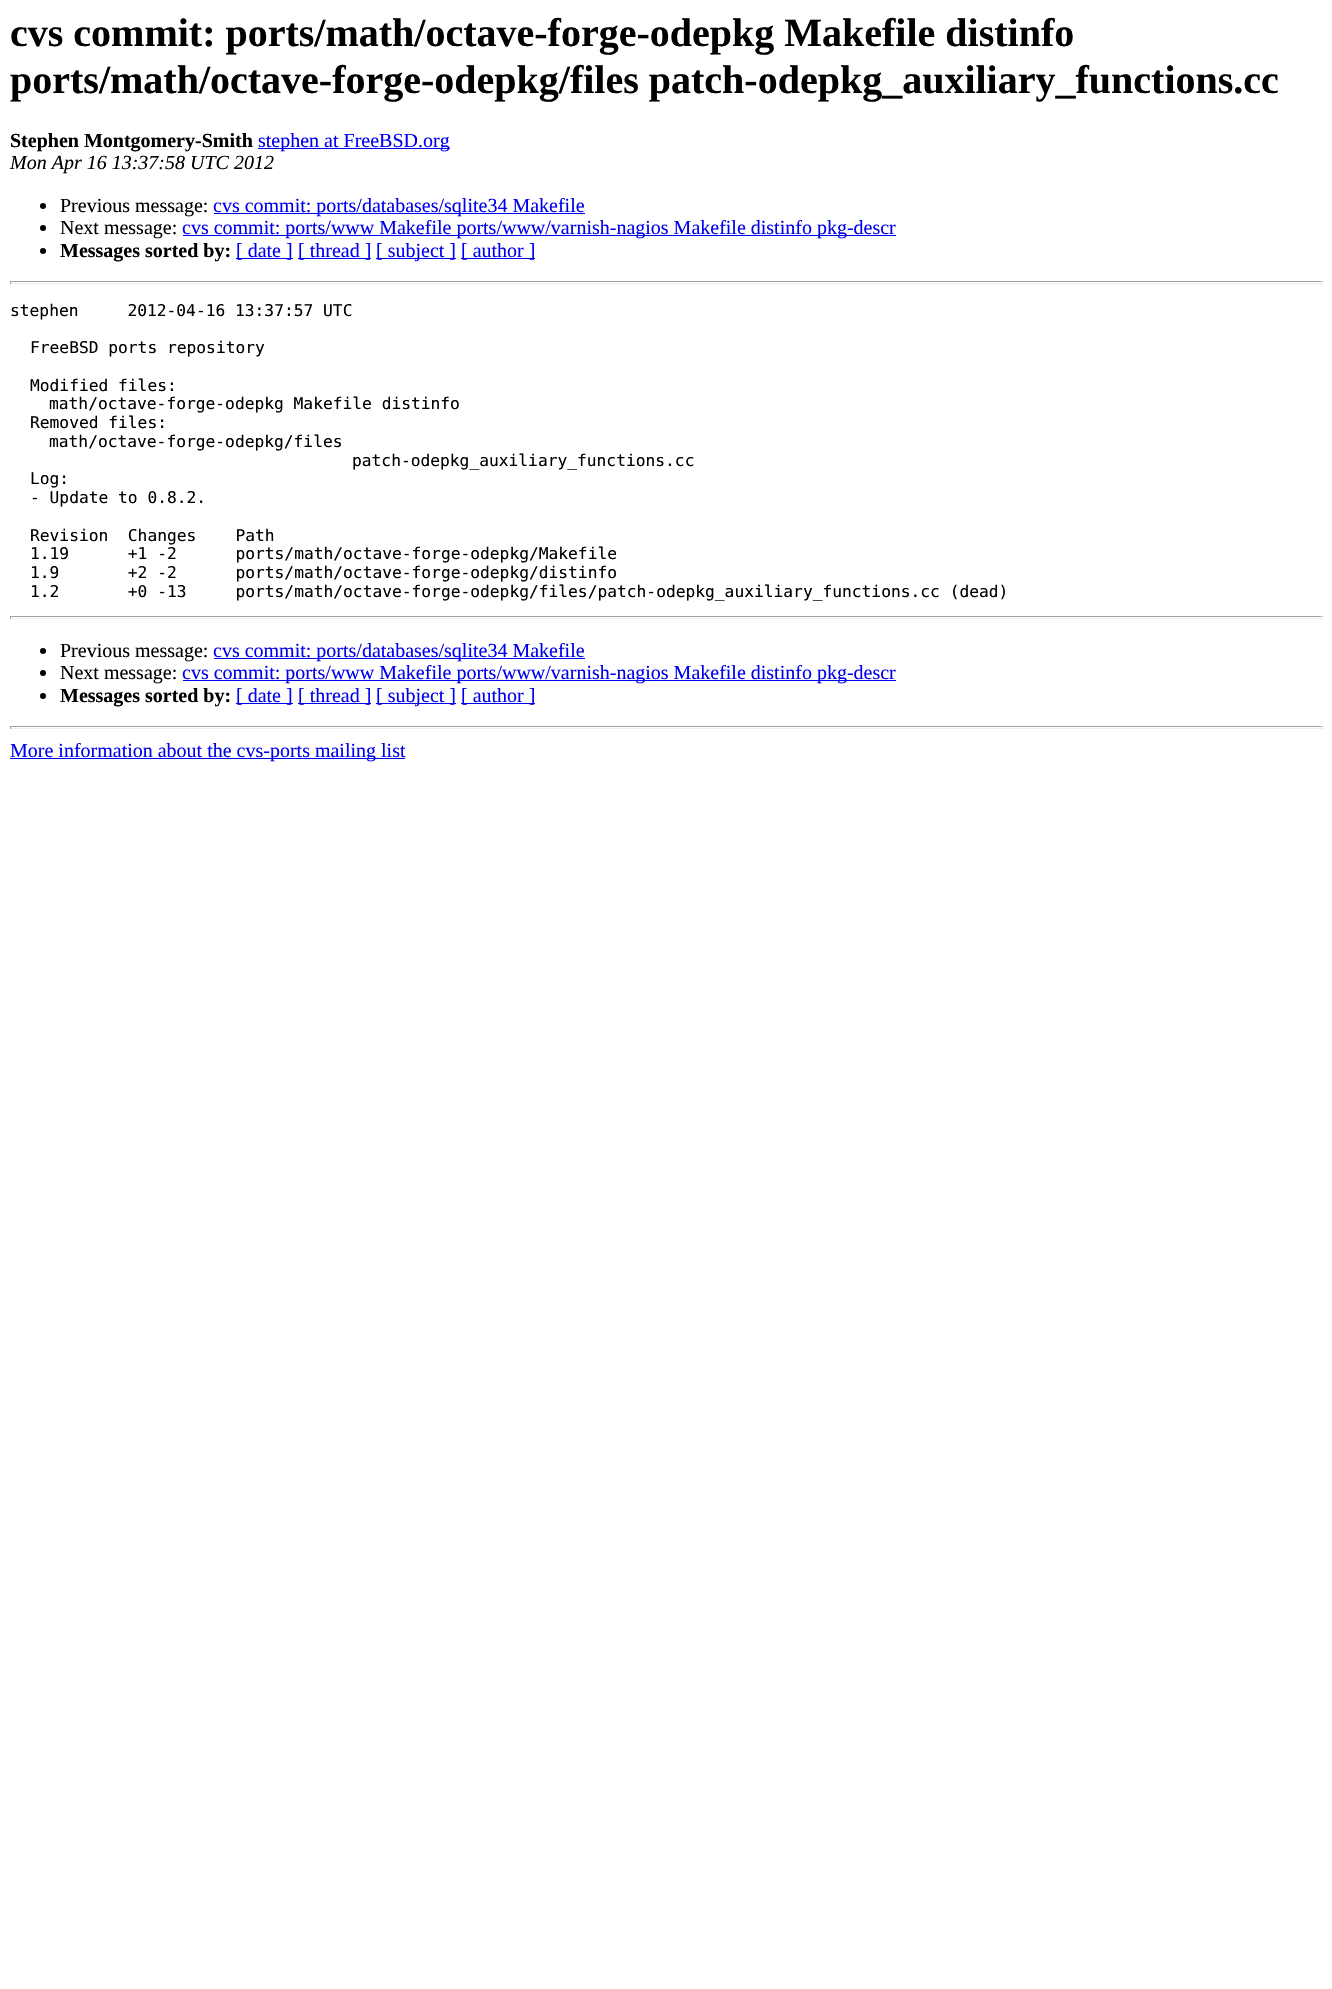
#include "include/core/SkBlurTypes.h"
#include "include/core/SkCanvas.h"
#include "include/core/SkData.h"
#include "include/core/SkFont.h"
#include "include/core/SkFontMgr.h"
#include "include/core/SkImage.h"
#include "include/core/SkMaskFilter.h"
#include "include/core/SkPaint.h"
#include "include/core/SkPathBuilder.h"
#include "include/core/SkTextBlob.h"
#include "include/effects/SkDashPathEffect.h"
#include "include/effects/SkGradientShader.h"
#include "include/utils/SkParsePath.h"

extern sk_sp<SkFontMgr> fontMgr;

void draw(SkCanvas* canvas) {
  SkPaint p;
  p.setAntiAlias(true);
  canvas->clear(SK_ColorWHITE);
  p.setColor(SkColorSetRGB(0, 0, 238));
  canvas->drawRect(SkRect::MakeLTRB(258, 148, 450, 149), p);
  p.setColor(SK_ColorBLACK);
  canvas->drawCircle(43, 206, 3, p);
  p.setColor(SkColorSetRGB(0, 0, 238));
  canvas->drawRect(SkRect::MakeLTRB(214, 213, 585, 214), p);
  p.setColor(SK_ColorBLACK);
  canvas->drawCircle(43, 228, 3, p);
  p.setColor(SkColorSetRGB(0, 0, 238));
  canvas->drawRect(SkRect::MakeLTRB(183, 235, 896, 236), p);
  p.setColor(SK_ColorBLACK);
  canvas->drawCircle(43, 251, 3, p);
  p.setColor(SkColorSetRGB(0, 0, 238));
  canvas->drawRect(SkRect::MakeLTRB(236, 258, 293, 259), p);
  canvas->drawRect(SkRect::MakeLTRB(298, 258, 371, 259), p);
  canvas->drawRect(SkRect::MakeLTRB(376, 258, 456, 259), p);
  canvas->drawRect(SkRect::MakeLTRB(461, 258, 535, 259), p);
  p.setColor(SkColorSetRGB(159, 159, 159));
  canvas->drawRect(SkRect::MakeLTRB(10, 281, 1323, 282), p);
  p.setColor(SkColorSetRGB(238, 238, 238));
  canvas->drawRect(SkRect::MakeLTRB(1321, 281, 1322, 284), p);
  canvas->drawRect(SkRect::MakeLTRB(10, 283, 1323, 284), p);
  p.setColor(SkColorSetRGB(159, 159, 159));
  canvas->drawRect(SkRect::MakeLTRB(10, 281, 11, 284), p);
  canvas->drawRect(SkRect::MakeLTRB(10, 616, 1323, 617), p);
  p.setColor(SkColorSetRGB(238, 238, 238));
  canvas->drawRect(SkRect::MakeLTRB(1321, 616, 1322, 619), p);
  canvas->drawRect(SkRect::MakeLTRB(10, 618, 1323, 619), p);
  p.setColor(SkColorSetRGB(159, 159, 159));
  canvas->drawRect(SkRect::MakeLTRB(10, 616, 11, 619), p);
  p.setColor(SK_ColorBLACK);
  canvas->drawCircle(43, 651, 3, p);
  p.setColor(SkColorSetRGB(0, 0, 238));
  canvas->drawRect(SkRect::MakeLTRB(214, 658, 585, 659), p);
  p.setColor(SK_ColorBLACK);
  canvas->drawCircle(43, 673, 3, p);
  p.setColor(SkColorSetRGB(0, 0, 238));
  canvas->drawRect(SkRect::MakeLTRB(183, 680, 896, 681), p);
  p.setColor(SK_ColorBLACK);
  canvas->drawCircle(43, 696, 3, p);
  p.setColor(SkColorSetRGB(0, 0, 238));
  canvas->drawRect(SkRect::MakeLTRB(236, 703, 293, 704), p);
  canvas->drawRect(SkRect::MakeLTRB(298, 703, 371, 704), p);
  canvas->drawRect(SkRect::MakeLTRB(376, 703, 456, 704), p);
  canvas->drawRect(SkRect::MakeLTRB(461, 703, 535, 704), p);
  p.setColor(SkColorSetRGB(159, 159, 159));
  canvas->drawRect(SkRect::MakeLTRB(10, 726, 1323, 727), p);
  p.setColor(SkColorSetRGB(238, 238, 238));
  canvas->drawRect(SkRect::MakeLTRB(1321, 726, 1322, 729), p);
  canvas->drawRect(SkRect::MakeLTRB(10, 728, 1323, 729), p);
  p.setColor(SkColorSetRGB(159, 159, 159));
  canvas->drawRect(SkRect::MakeLTRB(10, 726, 11, 729), p);
  p.setColor(SkColorSetRGB(0, 0, 238));
  canvas->drawRect(SkRect::MakeLTRB(10, 758, 405, 759), p);
  SkFont font1(fontMgr->matchFamilyStyle("Liberation Serif", SkFontStyle::Bold()), 40);
  font1.setSubpixel(true);
  p.setColor(SK_ColorBLACK);
  canvas->drawString("cvs commit: ports/math/octave-forge-odepkg Makefile distinfo", 10, 46, font1, p);
  canvas->drawString("ports/math/octave-forge-odepkg/files patch-odepkg_auxiliary_functions.cc", 10, 93, font1, p);
  SkFont font2(fontMgr->matchFamilyStyle("Liberation Serif", SkFontStyle::Bold()), 20);
  font2.setSubpixel(true);
  canvas->drawString("Stephen Montgomery-Smith", 10, 147, font2, p);
  SkFont font3(fontMgr->matchFamilyStyle("Liberation Serif", SkFontStyle::Normal()), 20);
  font3.setSubpixel(true);
  p.setColor(SkColorSetRGB(0, 0, 238));
  canvas->drawString("stephen at FreeBSD.org", 258, 147, font3, p);
  SkFont font4(fontMgr->matchFamilyStyle("Liberation Serif", SkFontStyle::Italic()), 20);
  font4.setSubpixel(true);
  p.setColor(SK_ColorBLACK);
  canvas->drawString("Mon Apr 16 13:37:58 UTC 2012", 10, 169, font4, p);
  canvas->drawString("Previous message:", 60, 212, font3, p);
  p.setColor(SkColorSetRGB(0, 0, 238));
  canvas->drawString("cvs commit: ports/databases/sqlite34 Makefile", 213, 212, font3, p);
  p.setColor(SK_ColorBLACK);
  canvas->drawString("Next message:", 60, 234, font3, p);
  p.setColor(SkColorSetRGB(0, 0, 238));
  canvas->drawString("cvs commit: ports/www Makefile ports/www/varnish-nagios Makefile distinfo pkg-descr", 182, 234, font3, p);
  p.setColor(SK_ColorBLACK);
  canvas->drawString("Messages sorted by:", 60, 257, font2, p);
  p.setColor(SkColorSetRGB(0, 0, 238));
  canvas->drawString("[ date ]", 236, 257, font3, p);
  canvas->drawString("[ thread ]", 298, 257, font3, p);
  canvas->drawString("[ subject ]", 376, 257, font3, p);
  canvas->drawString("[ author ]", 461, 257, font3, p);
  SkFont font5(fontMgr->matchFamilyStyle("DejaVu Sans Mono", SkFontStyle::Normal()), 16.25f);
  font5.setSubpixel(true);
  p.setColor(SK_ColorBLACK);
  canvas->drawString("stephen     2012-04-16 13:37:57 UTC", 10, 316, font5, p);
  canvas->drawString("FreeBSD ports repository", 30, 353, font5, p);
  canvas->drawString("Modified files:", 30, 391, font5, p);
  canvas->drawString("math/octave-forge-odepkg Makefile distinfo", 49, 409, font5, p);
  canvas->drawString("Removed files:", 30, 428, font5, p);
  canvas->drawString("math/octave-forge-odepkg/files", 49, 447, font5, p);
  canvas->drawString("patch-odepkg_auxiliary_functions.cc", 352, 466, font5, p);
  canvas->drawString("Log:", 30, 484, font5, p);
  canvas->drawString("- Update to 0.8.2.", 30, 503, font5, p);
  canvas->drawString("Revision  Changes    Path", 30, 541, font5, p);
  canvas->drawString("1.19      +1 -2      ports/math/octave-forge-odepkg/Makefile", 30, 559, font5, p);
  canvas->drawString("1.9       +2 -2      ports/math/octave-forge-odepkg/distinfo", 30, 578, font5, p);
  canvas->drawString("1.2       +0 -13     ports/math/octave-forge-odepkg/files/patch-odepkg_auxiliary_functions.cc (dead)", 30, 597, font5, p);
  canvas->drawString("Previous message:", 60, 657, font3, p);
  p.setColor(SkColorSetRGB(0, 0, 238));
  canvas->drawString("cvs commit: ports/databases/sqlite34 Makefile", 213, 657, font3, p);
  p.setColor(SK_ColorBLACK);
  canvas->drawString("Next message:", 60, 679, font3, p);
  p.setColor(SkColorSetRGB(0, 0, 238));
  canvas->drawString("cvs commit: ports/www Makefile ports/www/varnish-nagios Makefile distinfo pkg-descr", 182, 679, font3, p);
  p.setColor(SK_ColorBLACK);
  canvas->drawString("Messages sorted by:", 60, 702, font2, p);
  p.setColor(SkColorSetRGB(0, 0, 238));
  canvas->drawString("[ date ]", 236, 702, font3, p);
  canvas->drawString("[ thread ]", 298, 702, font3, p);
  canvas->drawString("[ subject ]", 376, 702, font3, p);
  canvas->drawString("[ author ]", 461, 702, font3, p);
  canvas->drawString("More information about the cvs-ports mailing list", 10, 757, font3, p);
}
